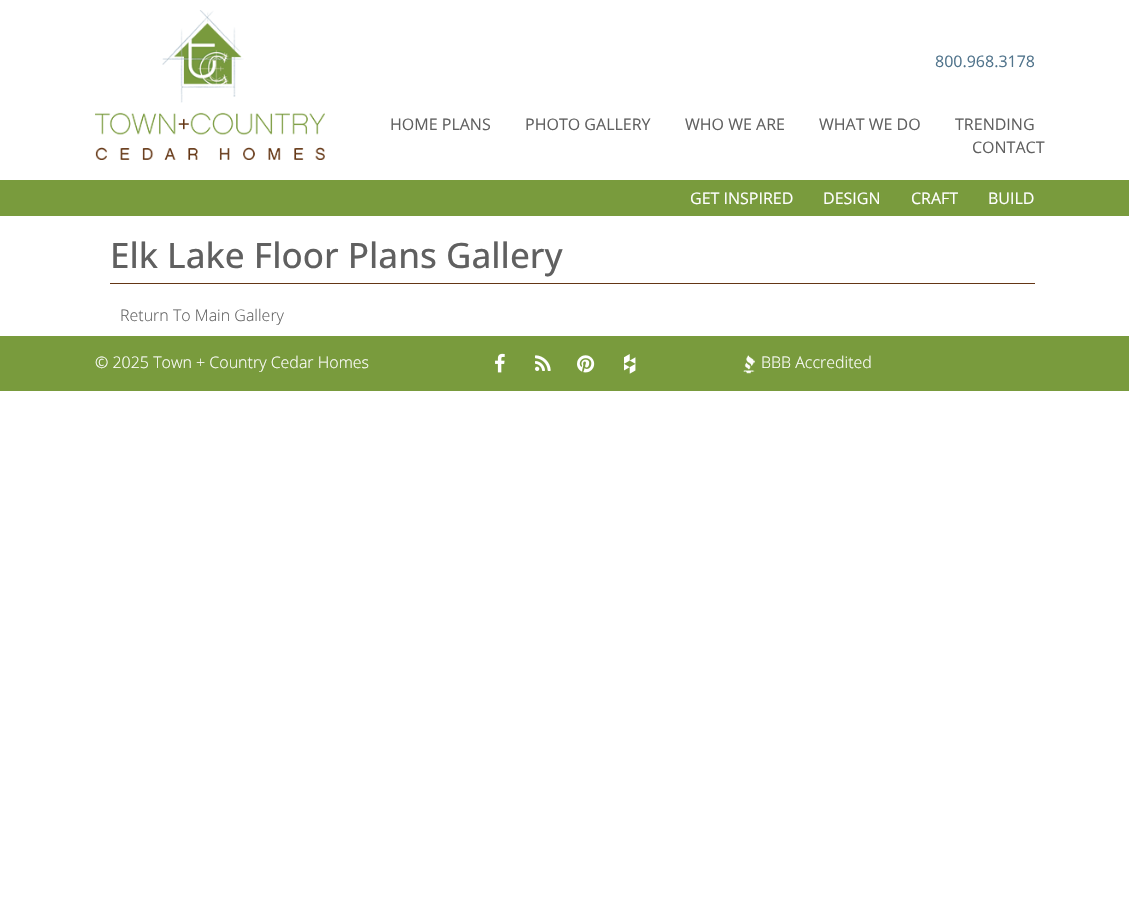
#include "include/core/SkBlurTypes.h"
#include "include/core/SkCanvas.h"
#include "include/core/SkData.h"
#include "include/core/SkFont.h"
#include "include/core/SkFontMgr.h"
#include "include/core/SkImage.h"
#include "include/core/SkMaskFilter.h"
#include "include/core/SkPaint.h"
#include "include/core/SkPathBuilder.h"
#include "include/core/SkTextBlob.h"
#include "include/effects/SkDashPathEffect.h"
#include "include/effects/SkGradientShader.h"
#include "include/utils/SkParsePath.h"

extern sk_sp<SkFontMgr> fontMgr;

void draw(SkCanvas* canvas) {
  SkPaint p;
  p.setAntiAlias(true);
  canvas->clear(SK_ColorWHITE);
  p.setColor(SkColorSetRGB(121, 155, 61));
  canvas->drawRect(SkRect::MakeLTRB(0, 180, 1129, 216), p);
  canvas->drawImageRect(SkImages::DeferredFromEncodedData(SkData::MakeFromFileName("images/1.png")), SkRect::MakeLTRB(95, 10, 325, 160), SkSamplingOptions());
  p.setColor(SkColorSetRGB(100, 54, 21));
  canvas->drawRect(SkRect::MakeLTRB(110, 283, 1035, 284), p);
  p.setColor(SkColorSetRGB(121, 155, 61));
  canvas->drawRect(SkRect::MakeLTRB(0, 336, 1129, 391), p);
  canvas->drawImageRect(SkImages::DeferredFromEncodedData(SkData::MakeFromFileName("images/2.png")), SkRect::MakeLTRB(495, 353, 505, 373), SkSamplingOptions());
  canvas->drawImageRect(SkImages::DeferredFromEncodedData(SkData::MakeFromFileName("images/3.png")), SkRect::MakeLTRB(535, 355, 551, 371), SkSamplingOptions());
  canvas->drawImageRect(SkImages::DeferredFromEncodedData(SkData::MakeFromFileName("images/4.png")), SkRect::MakeLTRB(577, 355, 595, 373), SkSamplingOptions());
  canvas->drawImageRect(SkImages::DeferredFromEncodedData(SkData::MakeFromFileName("images/5.png")), SkRect::MakeLTRB(624, 354, 636, 374), SkSamplingOptions());
  canvas->drawImageRect(SkImages::DeferredFromEncodedData(SkData::MakeFromFileName("images/6.png")), SkRect::MakeLTRB(743, 355, 755, 374), SkSamplingOptions());
  SkFont font1(fontMgr->matchFamilyStyle("Open Sans", SkFontStyle::Normal()), 16);
  font1.setSubpixel(true);
  p.setColor(SkColorSetRGB(81, 116, 140));
  canvas->drawString("800.968.3178", 935, 67, font1, p);
  p.setColor(SkColorSetRGB(96, 96, 96));
  canvas->drawString("HOME PLANS", 390, 130, font1, p);
  canvas->drawString("PHOTO GALLERY", 525, 130, font1, p);
  canvas->drawString("WHO WE ARE", 685, 130, font1, p);
  canvas->drawString("WHAT WE DO", 819, 130, font1, p);
  canvas->drawString("TRENDING", 955, 130, font1, p);
  canvas->drawString("CONTACT", 972, 153, font1, p);
  p.setColor(SK_ColorWHITE);
  canvas->drawString("GET INSPIRED", 690, 204, font1, p);
  canvas->drawString("DESIGN", 823, 204, font1, p);
  canvas->drawString("CRAFT", 911, 204, font1, p);
  canvas->drawString("BUILD", 988, 204, font1, p);
  SkFont font2(fontMgr->matchFamilyStyle("Open Sans", SkFontStyle(500, SkFontStyle::kNormal_Width, SkFontStyle::kUpright_Slant)), 35);
  font2.setSubpixel(true);
  p.setColor(SkColorSetRGB(96, 96, 96));
  canvas->drawString("Elk Lake Floor Plans Gallery", 110, 268, font2, p);
  SkFont font3(fontMgr->matchFamilyStyle("Open Sans", SkFontStyle(300, SkFontStyle::kNormal_Width, SkFontStyle::kUpright_Slant)), 16);
  font3.setSubpixel(true);
  canvas->drawString("Return To Main Gallery", 120, 321, font3, p);
  p.setColor(SK_ColorWHITE);
  canvas->drawString("© 2025 Town + Country Cedar Homes", 95, 368, font3, p);
  canvas->drawString("BBB Accredited", 761, 368, font3, p);
}
